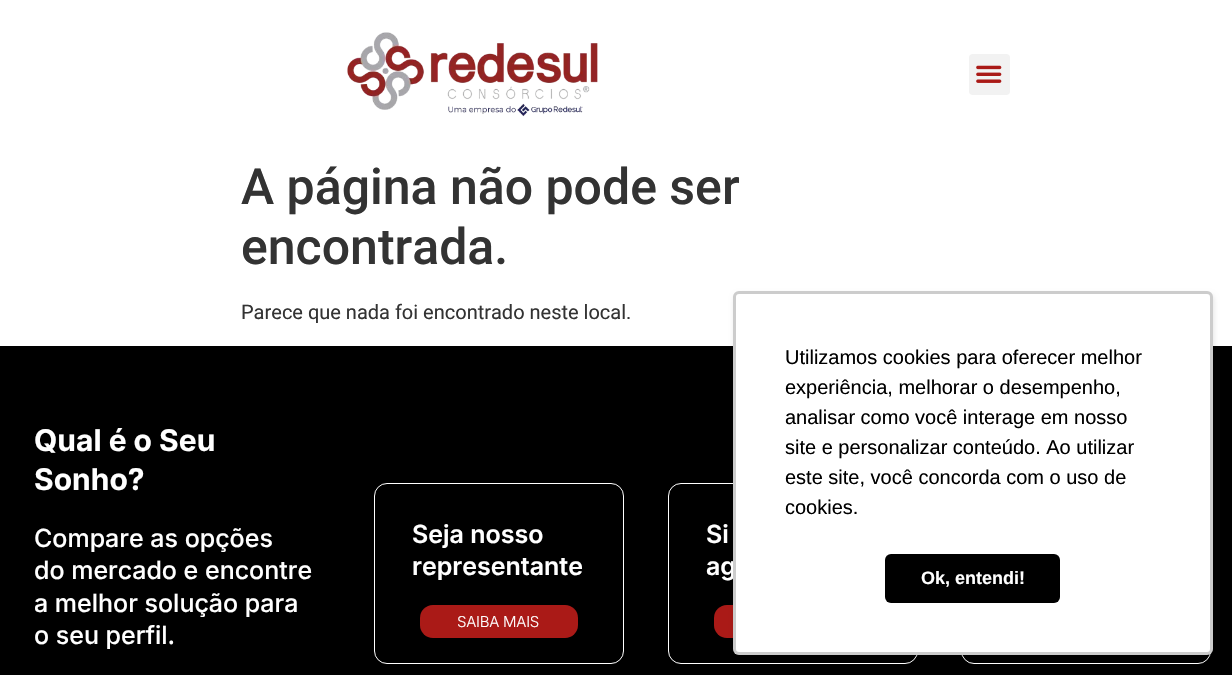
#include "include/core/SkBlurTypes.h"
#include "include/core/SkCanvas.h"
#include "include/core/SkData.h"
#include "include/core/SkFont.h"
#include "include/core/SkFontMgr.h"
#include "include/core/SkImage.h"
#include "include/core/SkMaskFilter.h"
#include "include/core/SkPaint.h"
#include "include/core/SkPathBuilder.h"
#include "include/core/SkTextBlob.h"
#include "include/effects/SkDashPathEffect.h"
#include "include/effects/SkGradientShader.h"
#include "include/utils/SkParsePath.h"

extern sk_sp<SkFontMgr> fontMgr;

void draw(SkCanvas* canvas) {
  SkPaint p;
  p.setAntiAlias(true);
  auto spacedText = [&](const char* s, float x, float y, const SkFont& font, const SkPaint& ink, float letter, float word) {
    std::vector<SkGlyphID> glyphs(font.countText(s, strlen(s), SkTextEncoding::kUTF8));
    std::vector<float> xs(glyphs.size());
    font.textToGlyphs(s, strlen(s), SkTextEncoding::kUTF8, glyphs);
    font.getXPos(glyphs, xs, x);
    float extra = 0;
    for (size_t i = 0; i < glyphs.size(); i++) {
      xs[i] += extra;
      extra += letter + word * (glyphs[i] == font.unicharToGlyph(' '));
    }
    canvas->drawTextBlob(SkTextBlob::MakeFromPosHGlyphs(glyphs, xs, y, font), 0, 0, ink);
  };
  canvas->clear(SK_ColorWHITE);
  canvas->drawImageRect(SkImages::DeferredFromEncodedData(SkData::MakeFromFileName("images/1.png")), SkRect::MakeLTRB(347, 32, 598, 117), SkSamplingOptions());
  p.setColor(SkColorSetRGB(242, 242, 242));
  canvas->drawRoundRect(SkRect::MakeLTRB(969, 54, 1010, 95), 4, 4, p);
  canvas->drawImageRect(SkImages::DeferredFromEncodedData(SkData::MakeFromFileName("images/2.png")), SkRect::MakeLTRB(976, 65, 1002, 83), SkSamplingOptions());
  p.setColor(SK_ColorBLACK);
  canvas->drawRect(SkRect::MakeLTRB(0, 346, 1232, 675), p);
  p.setStyle(SkPaint::kStroke_Style);
  p.setStrokeWidth(1);
  p.setColor(SK_ColorWHITE);
  canvas->drawRoundRect(SkRect::MakeLTRB(374.5f, 483.5f, 623.5f, 663.5f), 12.5f, 12.5f, p);
  p.setStyle(SkPaint::kFill_Style);
  p.setColor(SkColorSetRGB(170, 26, 23));
  canvas->drawRoundRect(SkRect::MakeLTRB(420, 605, 578, 638), 13, 13, p);
  p.setStyle(SkPaint::kStroke_Style);
  p.setColor(SK_ColorWHITE);
  canvas->drawRoundRect(SkRect::MakeLTRB(668.5f, 483.5f, 917.5f, 663.5f), 12.5f, 12.5f, p);
  p.setStyle(SkPaint::kFill_Style);
  p.setColor(SkColorSetRGB(170, 26, 23));
  canvas->drawRoundRect(SkRect::MakeLTRB(714, 605, 871, 638), 13, 13, p);
  p.setStyle(SkPaint::kStroke_Style);
  p.setColor(SK_ColorWHITE);
  canvas->drawRoundRect(SkRect::MakeLTRB(961.5f, 483.5f, 1210.5f, 663.5f), 12.5f, 12.5f, p);
  p.setStyle(SkPaint::kFill_Style);
  p.setColor(SkColorSetARGB(26, 0, 0, 0));
  p.setMaskFilter(SkMaskFilter::MakeBlur(kNormal_SkBlurStyle, 2.5f));
  canvas->drawRoundRect(SkRect::MakeLTRB(734, 294, 1214, 658), 6, 6, p);
  p.setMaskFilter(nullptr);
  p.setColor(SK_ColorWHITE);
  canvas->drawRoundRect(SkRect::MakeLTRB(733, 291, 1213, 655), 6, 6, p);
  SkFont font1(fontMgr->matchFamilyStyle("Roboto", SkFontStyle(500, SkFontStyle::kNormal_Width, SkFontStyle::kUpright_Slant)), 50);
  font1.setSubpixel(true);
  p.setColor(SkColorSetRGB(51, 51, 51));
  canvas->drawString("A página não pode ser", 241, 204, font1, p);
  canvas->drawString("encontrada.", 241, 264, font1, p);
  SkFont font2(fontMgr->matchFamilyStyle("Roboto", SkFontStyle::Normal()), 20);
  font2.setSubpixel(true);
  canvas->drawString("Parece que nada foi encontrado neste local.", 241, 319, font2, p);
  SkFont font3(fontMgr->matchFamilyStyle("Inter", SkFontStyle::Bold()), 30);
  font3.setSubpixel(true);
  p.setColor(SK_ColorWHITE);
  canvas->drawString("Qual é o Seu", 34, 451, font3, p);
  canvas->drawString("Sonho?", 34, 490, font3, p);
  SkFont font4(fontMgr->matchFamilyStyle("Inter", SkFontStyle(500, SkFontStyle::kNormal_Width, SkFontStyle::kUpright_Slant)), 25);
  font4.setSubpixel(true);
  canvas->drawString("Compare as opções", 34, 547, font4, p);
  canvas->drawString("do mercado e encontre", 34, 579, font4, p);
  canvas->drawString("a melhor solução para", 34, 612, font4, p);
  canvas->drawString("o seu perfil.", 34, 644, font4, p);
  SkFont font5(fontMgr->matchFamilyStyle("Inter", SkFontStyle(600, SkFontStyle::kNormal_Width, SkFontStyle::kUpright_Slant)), 25);
  font5.setSubpixel(true);
  canvas->drawString("Seja nosso", 412, 543, font5, p);
  canvas->drawString("representante", 412, 575, font5, p);
  SkFont font6(fontMgr->matchFamilyStyle("Inter", SkFontStyle(300, SkFontStyle::kNormal_Width, SkFontStyle::kUpright_Slant)), 15);
  font6.setSubpixel(true);
  spacedText("SAIBA MAIS", 457, 627, font6, p, -0.25f, 0);
  canvas->drawString("Si", 706, 543, font5, p);
  canvas->drawString("ag", 706, 575, font5, p);
  p.setStyle(SkPaint::kStroke_Style);
  p.setStrokeWidth(3);
  p.setColor(SkColorSetARGB(51, 0, 0, 0));
  canvas->drawRoundRect(SkRect::MakeLTRB(734.5f, 292.5f, 1211.5f, 653.5f), 4.5f, 4.5f, p);
  SkFont font7(fontMgr->matchFamilyStyle("Liberation Sans", SkFontStyle::Normal()), 20);
  font7.setSubpixel(true);
  p.setStyle(SkPaint::kFill_Style);
  p.setColor(SK_ColorBLACK);
  canvas->drawString("Utilizamos cookies para oferecer melhor", 785, 364, font7, p);
  canvas->drawString("experiência, melhorar o desempenho,", 785, 394, font7, p);
  canvas->drawString("analisar como você interage em nosso", 785, 424, font7, p);
  canvas->drawString("site e personalizar conteúdo. Ao utilizar", 785, 454, font7, p);
  canvas->drawString("este site, você concorda com o uso de", 785, 484, font7, p);
  canvas->drawString("cookies.", 785, 514, font7, p);
  canvas->drawRoundRect(SkRect::MakeLTRB(885, 554, 1060, 603), 6, 6, p);
  SkFont font8(fontMgr->matchFamilyStyle("Liberation Sans", SkFontStyle::Bold()), 18);
  font8.setSubpixel(true);
  p.setColor(SK_ColorWHITE);
  canvas->drawString("Ok, entendi!", 921, 584, font8, p);
}
